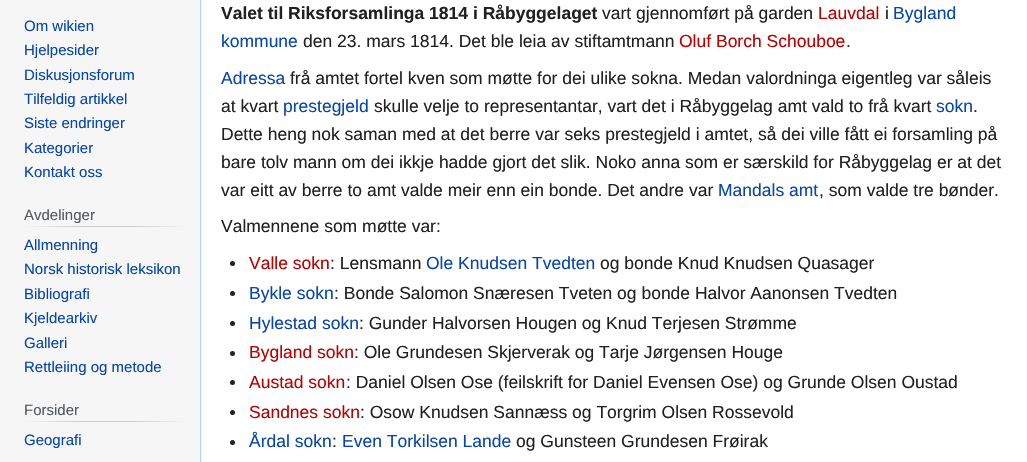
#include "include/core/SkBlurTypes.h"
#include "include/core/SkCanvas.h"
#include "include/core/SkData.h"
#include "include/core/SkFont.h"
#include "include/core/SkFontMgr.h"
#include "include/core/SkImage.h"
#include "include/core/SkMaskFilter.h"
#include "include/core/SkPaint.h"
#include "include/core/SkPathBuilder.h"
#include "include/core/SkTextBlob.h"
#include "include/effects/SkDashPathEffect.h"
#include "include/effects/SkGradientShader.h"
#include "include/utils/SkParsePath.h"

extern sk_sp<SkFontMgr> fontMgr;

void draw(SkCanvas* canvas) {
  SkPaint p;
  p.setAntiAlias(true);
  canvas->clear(SkColorSetRGB(246, 246, 246));
  {
    const SkColor colors[] = {SkColorSetRGB(246, 246, 246), SkColorSetRGB(200, 204, 209), SkColorSetRGB(200, 204, 209), SkColorSetRGB(246, 246, 246)};
    const float stops[] = {0, 0.33f, 0.66f, 1};
    const SkPoint ends[] = {{24, 227}, {188, 227}};
    p.setShader(SkGradientShader::MakeLinear(ends, colors, stops, 4, SkTileMode::kClamp));
    p.setAlpha(255);
  }
  canvas->drawRect(SkRect::MakeLTRB(24, 226, 188, 227), p);
  {
    const SkColor colors[] = {SkColorSetRGB(246, 246, 246), SkColorSetRGB(200, 204, 209), SkColorSetRGB(200, 204, 209), SkColorSetRGB(246, 246, 246)};
    const float stops[] = {0, 0.33f, 0.66f, 1};
    const SkPoint ends[] = {{24, 422}, {188, 422}};
    p.setShader(SkGradientShader::MakeLinear(ends, colors, stops, 4, SkTileMode::kClamp));
    p.setAlpha(255);
  }
  canvas->drawRect(SkRect::MakeLTRB(24, 421, 188, 422), p);
  p.setShader(nullptr);
  p.setColor(SK_ColorWHITE);
  canvas->drawRect(SkRect::MakeLTRB(201, 0, 1027, 462), p);
  p.setColor(SkColorSetRGB(167, 215, 249));
  canvas->drawRect(SkRect::MakeLTRB(200, 0, 201, 462), p);
  p.setColor(SkColorSetRGB(32, 33, 34));
  canvas->drawCircle(232.5f, 263.5f, 2.5f, p);
  canvas->drawCircle(232.5f, 293.5f, 2.5f, p);
  canvas->drawCircle(232.5f, 323.5f, 2.5f, p);
  canvas->drawCircle(232.5f, 353.5f, 2.5f, p);
  canvas->drawCircle(232.5f, 382.5f, 2.5f, p);
  canvas->drawCircle(232.5f, 412.5f, 2.5f, p);
  canvas->drawCircle(232.5f, 442.5f, 2.5f, p);
  SkFont font1(fontMgr->matchFamilyStyle("Liberation Sans", SkFontStyle::Normal()), 15);
  font1.setSubpixel(true);
  p.setColor(SkColorSetRGB(6, 69, 173));
  canvas->drawString("Om wikien", 24, 31, font1, p);
  canvas->drawString("Hjelpesider", 24, 55, font1, p);
  canvas->drawString("Diskusjonsforum", 24, 80, font1, p);
  canvas->drawString("Tilfeldig artikkel", 24, 104, font1, p);
  canvas->drawString("Siste endringer", 24, 128, font1, p);
  canvas->drawString("Kategorier", 24, 153, font1, p);
  canvas->drawString("Kontakt oss", 24, 177, font1, p);
  p.setColor(SkColorSetRGB(84, 89, 93));
  canvas->drawString("Avdelinger", 24, 220, font1, p);
  p.setColor(SkColorSetRGB(6, 69, 173));
  canvas->drawString("Allmenning", 24, 250, font1, p);
  canvas->drawString("Norsk historisk leksikon", 24, 274, font1, p);
  canvas->drawString("Bibliografi", 24, 299, font1, p);
  canvas->drawString("Kjeldearkiv", 24, 323, font1, p);
  canvas->drawString("Galleri", 24, 348, font1, p);
  canvas->drawString("Rettleiing og metode", 24, 372, font1, p);
  p.setColor(SkColorSetRGB(84, 89, 93));
  canvas->drawString("Forsider", 24, 415, font1, p);
  p.setColor(SkColorSetRGB(6, 69, 173));
  canvas->drawString("Geografi", 24, 445, font1, p);
  SkFont font2(fontMgr->matchFamilyStyle("Liberation Sans", SkFontStyle::Bold()), 17.5f);
  font2.setSubpixel(true);
  p.setColor(SkColorSetRGB(32, 33, 34));
  canvas->drawString("Valet til Riksforsamlinga 1814 i Råbyggelaget", 221, 19, font2, p);
  SkFont font3(fontMgr->matchFamilyStyle("Liberation Sans", SkFontStyle::Normal()), 17.5f);
  font3.setSubpixel(true);
  canvas->drawString("vart gjennomført på garden", 602, 19, font3, p);
  p.setColor(SkColorSetRGB(186, 0, 0));
  canvas->drawString("Lauvdal", 818, 19, font3, p);
  p.setColor(SkColorSetRGB(32, 33, 34));
  canvas->drawString("i", 885, 19, font3, p);
  p.setColor(SkColorSetRGB(6, 69, 173));
  canvas->drawString("Bygland", 893, 19, font3, p);
  canvas->drawString("kommune", 221, 47, font3, p);
  p.setColor(SkColorSetRGB(32, 33, 34));
  canvas->drawString("den 23. mars 1814. Det ble leia av stiftamtmann", 303, 47, font3, p);
  p.setColor(SkColorSetRGB(186, 0, 0));
  canvas->drawString("Oluf Borch Schouboe", 679, 47, font3, p);
  p.setColor(SkColorSetRGB(32, 33, 34));
  canvas->drawString(".", 846, 47, font3, p);
  p.setColor(SkColorSetRGB(6, 69, 173));
  canvas->drawString("Adressa", 221, 84, font3, p);
  p.setColor(SkColorSetRGB(32, 33, 34));
  canvas->drawString("frå amtet fortel kven som møtte for dei ulike sokna. Medan valordninga eigentleg var såleis", 290, 84, font3, p);
  canvas->drawString("at kvart", 221, 112, font3, p);
  p.setColor(SkColorSetRGB(6, 69, 173));
  canvas->drawString("prestegjeld", 283, 112, font3, p);
  p.setColor(SkColorSetRGB(32, 33, 34));
  canvas->drawString("skulle velje to representantar, vart det i Råbyggelag amt vald to frå kvart", 374, 112, font3, p);
  p.setColor(SkColorSetRGB(6, 69, 173));
  canvas->drawString("sokn", 936, 112, font3, p);
  p.setColor(SkColorSetRGB(32, 33, 34));
  canvas->drawString(".", 973, 112, font3, p);
  canvas->drawString("Dette heng nok saman med at det berre var seks prestegjeld i amtet, så dei ville fått ei forsamling på", 221, 140, font3, p);
  canvas->drawString("bare tolv mann om dei ikkje hadde gjort det slik. Noko anna som er særskild for Råbyggelag er at det", 221, 168, font3, p);
  canvas->drawString("var eitt av berre to amt valde meir enn ein bonde. Det andre var", 221, 196, font3, p);
  p.setColor(SkColorSetRGB(6, 69, 173));
  canvas->drawString("Mandals amt", 718, 196, font3, p);
  p.setColor(SkColorSetRGB(32, 33, 34));
  canvas->drawString(", som valde tre bønder.", 819, 196, font3, p);
  canvas->drawString("Valmennene som møtte var:", 221, 232, font3, p);
  p.setColor(SkColorSetRGB(186, 0, 0));
  canvas->drawString("Valle sokn", 249, 269, font3, p);
  p.setColor(SkColorSetRGB(32, 33, 34));
  canvas->drawString(": Lensmann", 330, 269, font3, p);
  p.setColor(SkColorSetRGB(6, 69, 173));
  canvas->drawString("Ole Knudsen Tvedten", 426, 269, font3, p);
  p.setColor(SkColorSetRGB(32, 33, 34));
  canvas->drawString("og bonde Knud Knudsen Quasager", 600, 269, font3, p);
  p.setColor(SkColorSetRGB(6, 69, 173));
  canvas->drawString("Bykle sokn", 249, 299, font3, p);
  p.setColor(SkColorSetRGB(32, 33, 34));
  canvas->drawString(": Bonde Salomon Snæresen Tveten og bonde Halvor Aanonsen Tvedten", 334, 299, font3, p);
  p.setColor(SkColorSetRGB(6, 69, 173));
  canvas->drawString("Hylestad sokn", 249, 329, font3, p);
  p.setColor(SkColorSetRGB(32, 33, 34));
  canvas->drawString(": Gunder Halvorsen Hougen og Knud Terjesen Strømme", 359, 329, font3, p);
  p.setColor(SkColorSetRGB(186, 0, 0));
  canvas->drawString("Bygland sokn", 249, 358, font3, p);
  p.setColor(SkColorSetRGB(32, 33, 34));
  canvas->drawString(": Ole Grundesen Skjerverak og Tarje Jørgensen Houge", 354, 358, font3, p);
  p.setColor(SkColorSetRGB(186, 0, 0));
  canvas->drawString("Austad sokn", 249, 388, font3, p);
  p.setColor(SkColorSetRGB(32, 33, 34));
  canvas->drawString(": Daniel Olsen Ose (feilskrift for Daniel Evensen Ose) og Grunde Olsen Oustad", 346, 388, font3, p);
  p.setColor(SkColorSetRGB(186, 0, 0));
  canvas->drawString("Sandnes sokn", 249, 418, font3, p);
  p.setColor(SkColorSetRGB(32, 33, 34));
  canvas->drawString(": Osow Knudsen Sannæss og Torgrim Olsen Rossevold", 360, 418, font3, p);
  p.setColor(SkColorSetRGB(6, 69, 173));
  canvas->drawString("Årdal sokn", 249, 447, font3, p);
  p.setColor(SkColorSetRGB(32, 33, 34));
  canvas->drawString(":", 332, 447, font3, p);
  p.setColor(SkColorSetRGB(6, 69, 173));
  canvas->drawString("Even Torkilsen Lande", 342, 447, font3, p);
  p.setColor(SkColorSetRGB(32, 33, 34));
  canvas->drawString("og Gunsteen Grundesen Frøirak", 516, 447, font3, p);
}
